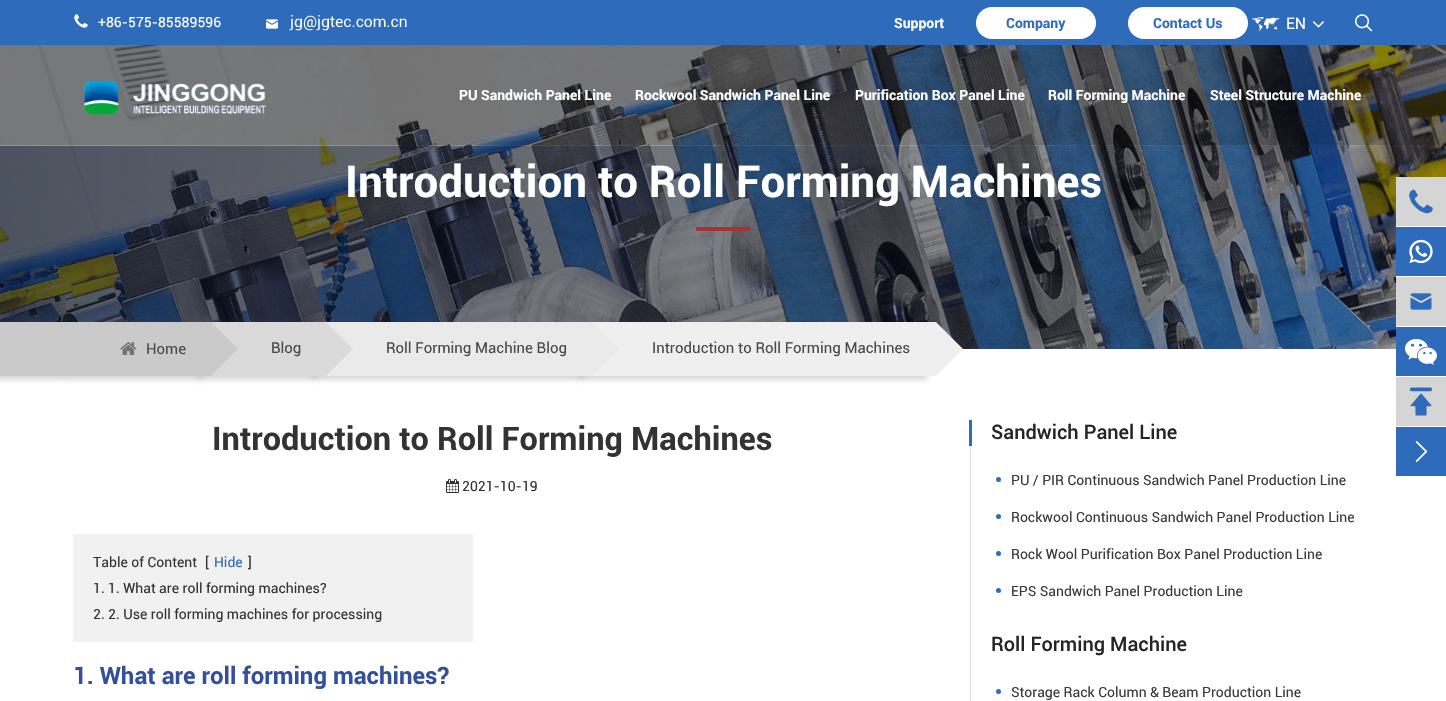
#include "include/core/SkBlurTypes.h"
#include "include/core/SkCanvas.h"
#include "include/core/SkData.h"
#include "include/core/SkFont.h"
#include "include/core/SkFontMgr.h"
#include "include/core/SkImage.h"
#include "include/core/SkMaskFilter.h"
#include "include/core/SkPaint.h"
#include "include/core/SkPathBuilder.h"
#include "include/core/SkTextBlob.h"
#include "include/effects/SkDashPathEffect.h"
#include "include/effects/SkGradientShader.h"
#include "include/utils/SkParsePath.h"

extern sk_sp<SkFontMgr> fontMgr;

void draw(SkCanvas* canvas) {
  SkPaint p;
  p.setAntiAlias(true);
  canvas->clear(SK_ColorWHITE);
  p.setColor(SkColorSetRGB(46, 107, 187));
  canvas->drawRect(SkRect::MakeLTRB(0, 0, 1446, 45), p);
  canvas->drawImageRect(SkImages::DeferredFromEncodedData(SkData::MakeFromFileName("images/1.png")), SkRect::MakeLTRB(74, 14, 88, 28), SkSamplingOptions());
  canvas->drawImageRect(SkImages::DeferredFromEncodedData(SkData::MakeFromFileName("images/2.png")), SkRect::MakeLTRB(266, 19, 278, 29), SkSamplingOptions());
  canvas->drawImageRect(SkImages::DeferredFromEncodedData(SkData::MakeFromFileName("images/3.png")), SkRect::MakeLTRB(289, 15, 407, 31), SkSamplingOptions());
  p.setColor(SK_ColorWHITE);
  canvas->drawRoundRect(SkRect::MakeLTRB(976, 7, 1096, 39), 16, 16, p);
  canvas->drawRoundRect(SkRect::MakeLTRB(1128, 7, 1248, 39), 16, 16, p);
  canvas->drawImageRect(SkImages::DeferredFromEncodedData(SkData::MakeFromFileName("images/4.png")), SkRect::MakeLTRB(1252, 17, 1280, 32), SkSamplingOptions());
  canvas->drawImageRect(SkImages::DeferredFromEncodedData(SkData::MakeFromFileName("images/5.png")), SkRect::MakeLTRB(1312, 21, 1324, 28), SkSamplingOptions());
  canvas->drawImageRect(SkImages::DeferredFromEncodedData(SkData::MakeFromFileName("images/6.png")), SkRect::MakeLTRB(1355, 14, 1373, 32), SkSamplingOptions());
  canvas->drawImageRect(SkImages::DeferredFromEncodedData(SkData::MakeFromFileName("images/8.png")), SkRect::MakeLTRB(0, 45, 1446, 349), SkSamplingOptions());
  p.setColor(SkColorSetARGB(51, 17, 17, 17));
  canvas->drawRect(SkRect::MakeLTRB(0, 45, 1446, 145), p);
  canvas->drawImageRect(SkImages::DeferredFromEncodedData(SkData::MakeFromFileName("images/7.png")), SkRect::MakeLTRB(84, 80, 266, 115), SkSamplingOptions());
  p.setColor(SkColorSetRGB(164, 50, 49));
  canvas->drawRect(SkRect::MakeLTRB(696, 227, 750, 231), p);
  p.setColor(SkColorSetRGB(213, 213, 213));
  canvas->drawRect(SkRect::MakeLTRB(1396, 177, 1446, 226), p);
  p.setColor(SK_ColorWHITE);
  canvas->drawRect(SkRect::MakeLTRB(1396, 226, 1446, 227), p);
  canvas->drawImageRect(SkImages::DeferredFromEncodedData(SkData::MakeFromFileName("images/9.png")), SkRect::MakeLTRB(1409, 189, 1433, 214), SkSamplingOptions());
  p.setColor(SkColorSetRGB(46, 107, 187));
  canvas->drawRect(SkRect::MakeLTRB(1396, 227, 1446, 276), p);
  p.setColor(SK_ColorWHITE);
  canvas->drawRect(SkRect::MakeLTRB(1396, 276, 1446, 277), p);
  canvas->drawImageRect(SkImages::DeferredFromEncodedData(SkData::MakeFromFileName("images/10.png")), SkRect::MakeLTRB(1409, 239, 1433, 264), SkSamplingOptions());
  p.setColor(SkColorSetRGB(213, 213, 213));
  canvas->drawRect(SkRect::MakeLTRB(1396, 277, 1446, 326), p);
  p.setColor(SK_ColorWHITE);
  canvas->drawRect(SkRect::MakeLTRB(1396, 326, 1446, 327), p);
  canvas->drawImageRect(SkImages::DeferredFromEncodedData(SkData::MakeFromFileName("images/11.png")), SkRect::MakeLTRB(1410, 293, 1432, 310), SkSamplingOptions());
  p.setColor(SkColorSetRGB(46, 107, 187));
  canvas->drawRect(SkRect::MakeLTRB(1396, 327, 1446, 376), p);
  canvas->drawImageRect(SkImages::DeferredFromEncodedData(SkData::MakeFromFileName("images/12.png")), SkRect::MakeLTRB(1405, 339, 1437, 365), SkSamplingOptions());
  p.setColor(SkColorSetRGB(213, 213, 213));
  canvas->drawRect(SkRect::MakeLTRB(1396, 377, 1446, 426), p);
  canvas->drawImageRect(SkImages::DeferredFromEncodedData(SkData::MakeFromFileName("images/13.png")), SkRect::MakeLTRB(1409, 387, 1433, 416), SkSamplingOptions());
  p.setColor(SkColorSetRGB(46, 107, 187));
  canvas->drawRect(SkRect::MakeLTRB(1396, 427, 1446, 476), p);
  canvas->drawImageRect(SkImages::DeferredFromEncodedData(SkData::MakeFromFileName("images/14.png")), SkRect::MakeLTRB(1415, 441, 1428, 462), SkSamplingOptions());
  p.setColor(SkColorSetARGB(77, 100, 100, 100));
  p.setMaskFilter(SkMaskFilter::MakeBlur(kNormal_SkBlurStyle, 3));
  canvas->drawRect(SkRect::MakeLTRB(579, 325, 927, 379), p);
  p.setMaskFilter(nullptr);
  p.setColor(SkColorSetRGB(239, 239, 239));
  canvas->drawRect(SkRect::MakeLTRB(592, 322, 936, 376), p);
  p.setColor(SkColorSetARGB(77, 100, 100, 100));
  p.setMaskFilter(SkMaskFilter::MakeBlur(kNormal_SkBlurStyle, 3));
  canvas->drawRect(SkRect::MakeLTRB(313, 325, 583, 379), p);
  p.setMaskFilter(nullptr);
  p.setColor(SkColorSetRGB(234, 234, 234));
  canvas->drawRect(SkRect::MakeLTRB(326, 322, 592, 376), p);
  p.setColor(SkColorSetARGB(77, 100, 100, 100));
  p.setMaskFilter(SkMaskFilter::MakeBlur(kNormal_SkBlurStyle, 3));
  canvas->drawRect(SkRect::MakeLTRB(198, 325, 317, 379), p);
  p.setMaskFilter(nullptr);
  p.setColor(SkColorSetRGB(218, 218, 218));
  canvas->drawRect(SkRect::MakeLTRB(211, 322, 326, 376), p);
  p.setColor(SkColorSetARGB(77, 100, 100, 100));
  p.setMaskFilter(SkMaskFilter::MakeBlur(kNormal_SkBlurStyle, 3));
  canvas->drawRect(SkRect::MakeLTRB(64, 325, 202, 379), p);
  p.setMaskFilter(nullptr);
  p.setColor(SkColorSetRGB(202, 202, 202));
  canvas->drawRect(SkRect::MakeLTRB(73, 322, 211, 376), p);
  p.setColor(SkColorSetARGB(77, 100, 100, 100));
  p.setMaskFilter(SkMaskFilter::MakeBlur(kNormal_SkBlurStyle, 3));
  canvas->drawRect(SkRect::MakeLTRB(-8, 325, 65, 379), p);
  p.setMaskFilter(nullptr);
  p.setColor(SkColorSetRGB(202, 202, 202));
  canvas->drawRect(SkRect::MakeLTRB(0, 322, 73, 376), p);
  canvas->drawImageRect(SkImages::DeferredFromEncodedData(SkData::MakeFromFileName("images/15.png")), SkRect::MakeLTRB(120, 342, 137, 355), SkSamplingOptions());
  canvas->drawPath(SkPathBuilder().moveTo(211, 376).lineTo(211, 322).lineTo(238, 349).close().detach(), p);
  p.setColor(SkColorSetRGB(218, 218, 218));
  canvas->drawPath(SkPathBuilder().moveTo(326, 376).lineTo(326, 322).lineTo(353, 349).close().detach(), p);
  p.setColor(SkColorSetRGB(234, 234, 234));
  canvas->drawPath(SkPathBuilder().moveTo(592, 376).lineTo(592, 322).lineTo(619, 349).close().detach(), p);
  p.setColor(SkColorSetRGB(239, 239, 239));
  canvas->drawPath(SkPathBuilder().moveTo(936, 376).lineTo(936, 322).lineTo(963, 349).close().detach(), p);
  canvas->drawImageRect(SkImages::DeferredFromEncodedData(SkData::MakeFromFileName("images/16.png")), SkRect::MakeLTRB(446, 479, 459, 493), SkSamplingOptions());
  p.setColor(SkColorSetRGB(241, 241, 241));
  canvas->drawRect(SkRect::MakeLTRB(73, 534, 473, 642), p);
  p.setColor(SkColorSetRGB(225, 225, 225));
  canvas->drawRect(SkRect::MakeLTRB(970, 446, 971, 701), p);
  p.setColor(SkColorSetRGB(46, 107, 187));
  canvas->drawRect(SkRect::MakeLTRB(969, 420, 972, 446), p);
  canvas->drawCircle(998.5f, 479.5f, 2.5f, p);
  canvas->drawCircle(998.5f, 516.5f, 2.5f, p);
  canvas->drawCircle(998.5f, 553.5f, 2.5f, p);
  canvas->drawCircle(998.5f, 590.5f, 2.5f, p);
  canvas->drawCircle(998.5f, 691.5f, 2.5f, p);
  SkFont font1(fontMgr->matchFamilyStyle("Roboto", SkFontStyle::Normal()), 14);
  font1.setSubpixel(true);
  p.setColor(SK_ColorWHITE);
  canvas->drawString("+86-575-85589596", 98, 27, font1, p);
  SkFont font2(fontMgr->matchFamilyStyle("Roboto", SkFontStyle::Bold()), 14);
  font2.setSubpixel(true);
  canvas->drawString("Support", 894, 28, font2, p);
  p.setColor(SkColorSetRGB(46, 107, 187));
  canvas->drawString("Company", 1006, 28, font2, p);
  canvas->drawString("Contact Us", 1153, 28, font2, p);
  SkFont font3(fontMgr->matchFamilyStyle("Roboto", SkFontStyle::Normal()), 16);
  font3.setSubpixel(true);
  p.setColor(SK_ColorWHITE);
  canvas->drawString("EN", 1286, 29, font3, p);
  canvas->drawString("PU Sandwich Panel Line", 459, 100, font2, p);
  canvas->drawString("Rockwool Sandwich Panel Line", 635, 100, font2, p);
  canvas->drawString("Purification Box Panel Line", 855, 100, font2, p);
  canvas->drawString("Roll Forming Machine", 1048, 100, font2, p);
  canvas->drawString("Steel Structure Machine", 1210, 100, font2, p);
  SkFont font4(fontMgr->matchFamilyStyle("Roboto", SkFontStyle::Bold()), 43.9f);
  font4.setSubpixel(true);
  canvas->drawString("Introduction to Roll Forming Machines", 345, 197, font4, p);
  SkFont font5(fontMgr->matchFamilyStyle("Roboto", SkFontStyle::Normal()), 15);
  font5.setSubpixel(true);
  p.setColor(SkColorSetRGB(73, 73, 73));
  canvas->drawString("Home", 146, 354, font5, p);
  canvas->drawString("Blog", 271, 353, font5, p);
  canvas->drawString("Roll Forming Machine Blog", 386, 353, font5, p);
  canvas->drawString("Introduction to Roll Forming Machines", 652, 353, font5, p);
  SkFont font6(fontMgr->matchFamilyStyle("Roboto", SkFontStyle::Bold()), 32.5f);
  font6.setSubpixel(true);
  p.setColor(SkColorSetRGB(51, 51, 51));
  canvas->drawString("Introduction to Roll Forming Machines", 212, 450, font6, p);
  canvas->drawString("2021-10-19", 462, 491, font1, p);
  canvas->drawString("Table of Content", 93, 567, font1, p);
  canvas->drawString("[", 205, 567, font1, p);
  p.setColor(SkColorSetRGB(46, 107, 187));
  canvas->drawString("Hide", 214, 567, font1, p);
  p.setColor(SkColorSetRGB(51, 51, 51));
  canvas->drawString("]", 248, 567, font1, p);
  canvas->drawString("1. 1. What are roll forming machines?", 93, 593, font1, p);
  canvas->drawString("2. 2. Use roll forming machines for processing", 93, 619, font1, p);
  SkFont font7(fontMgr->matchFamilyStyle("Roboto", SkFontStyle::Bold()), 24);
  font7.setSubpixel(true);
  p.setColor(SkColorSetRGB(50, 80, 158));
  canvas->drawString("1. What are roll forming machines?", 73, 684, font7, p);
  SkFont font8(fontMgr->matchFamilyStyle("Roboto", SkFontStyle(500, SkFontStyle::kNormal_Width, SkFontStyle::kUpright_Slant)), 20);
  font8.setSubpixel(true);
  p.setColor(SkColorSetRGB(37, 37, 37));
  canvas->drawString("Sandwich Panel Line", 991, 439, font8, p);
  p.setColor(SkColorSetRGB(58, 58, 58));
  canvas->drawString("PU / PIR Continuous Sandwich Panel Production Line", 1011, 485, font1, p);
  canvas->drawString("Rockwool Continuous Sandwich Panel Production Line", 1011, 522, font1, p);
  canvas->drawString("Rock Wool Purification Box Panel Production Line", 1011, 559, font1, p);
  canvas->drawString("EPS Sandwich Panel Production Line", 1011, 596, font1, p);
  p.setColor(SkColorSetRGB(37, 37, 37));
  canvas->drawString("Roll Forming Machine", 991, 651, font8, p);
  p.setColor(SkColorSetRGB(58, 58, 58));
  canvas->drawString("Storage Rack Column & Beam Production Line", 1011, 697, font1, p);
}
